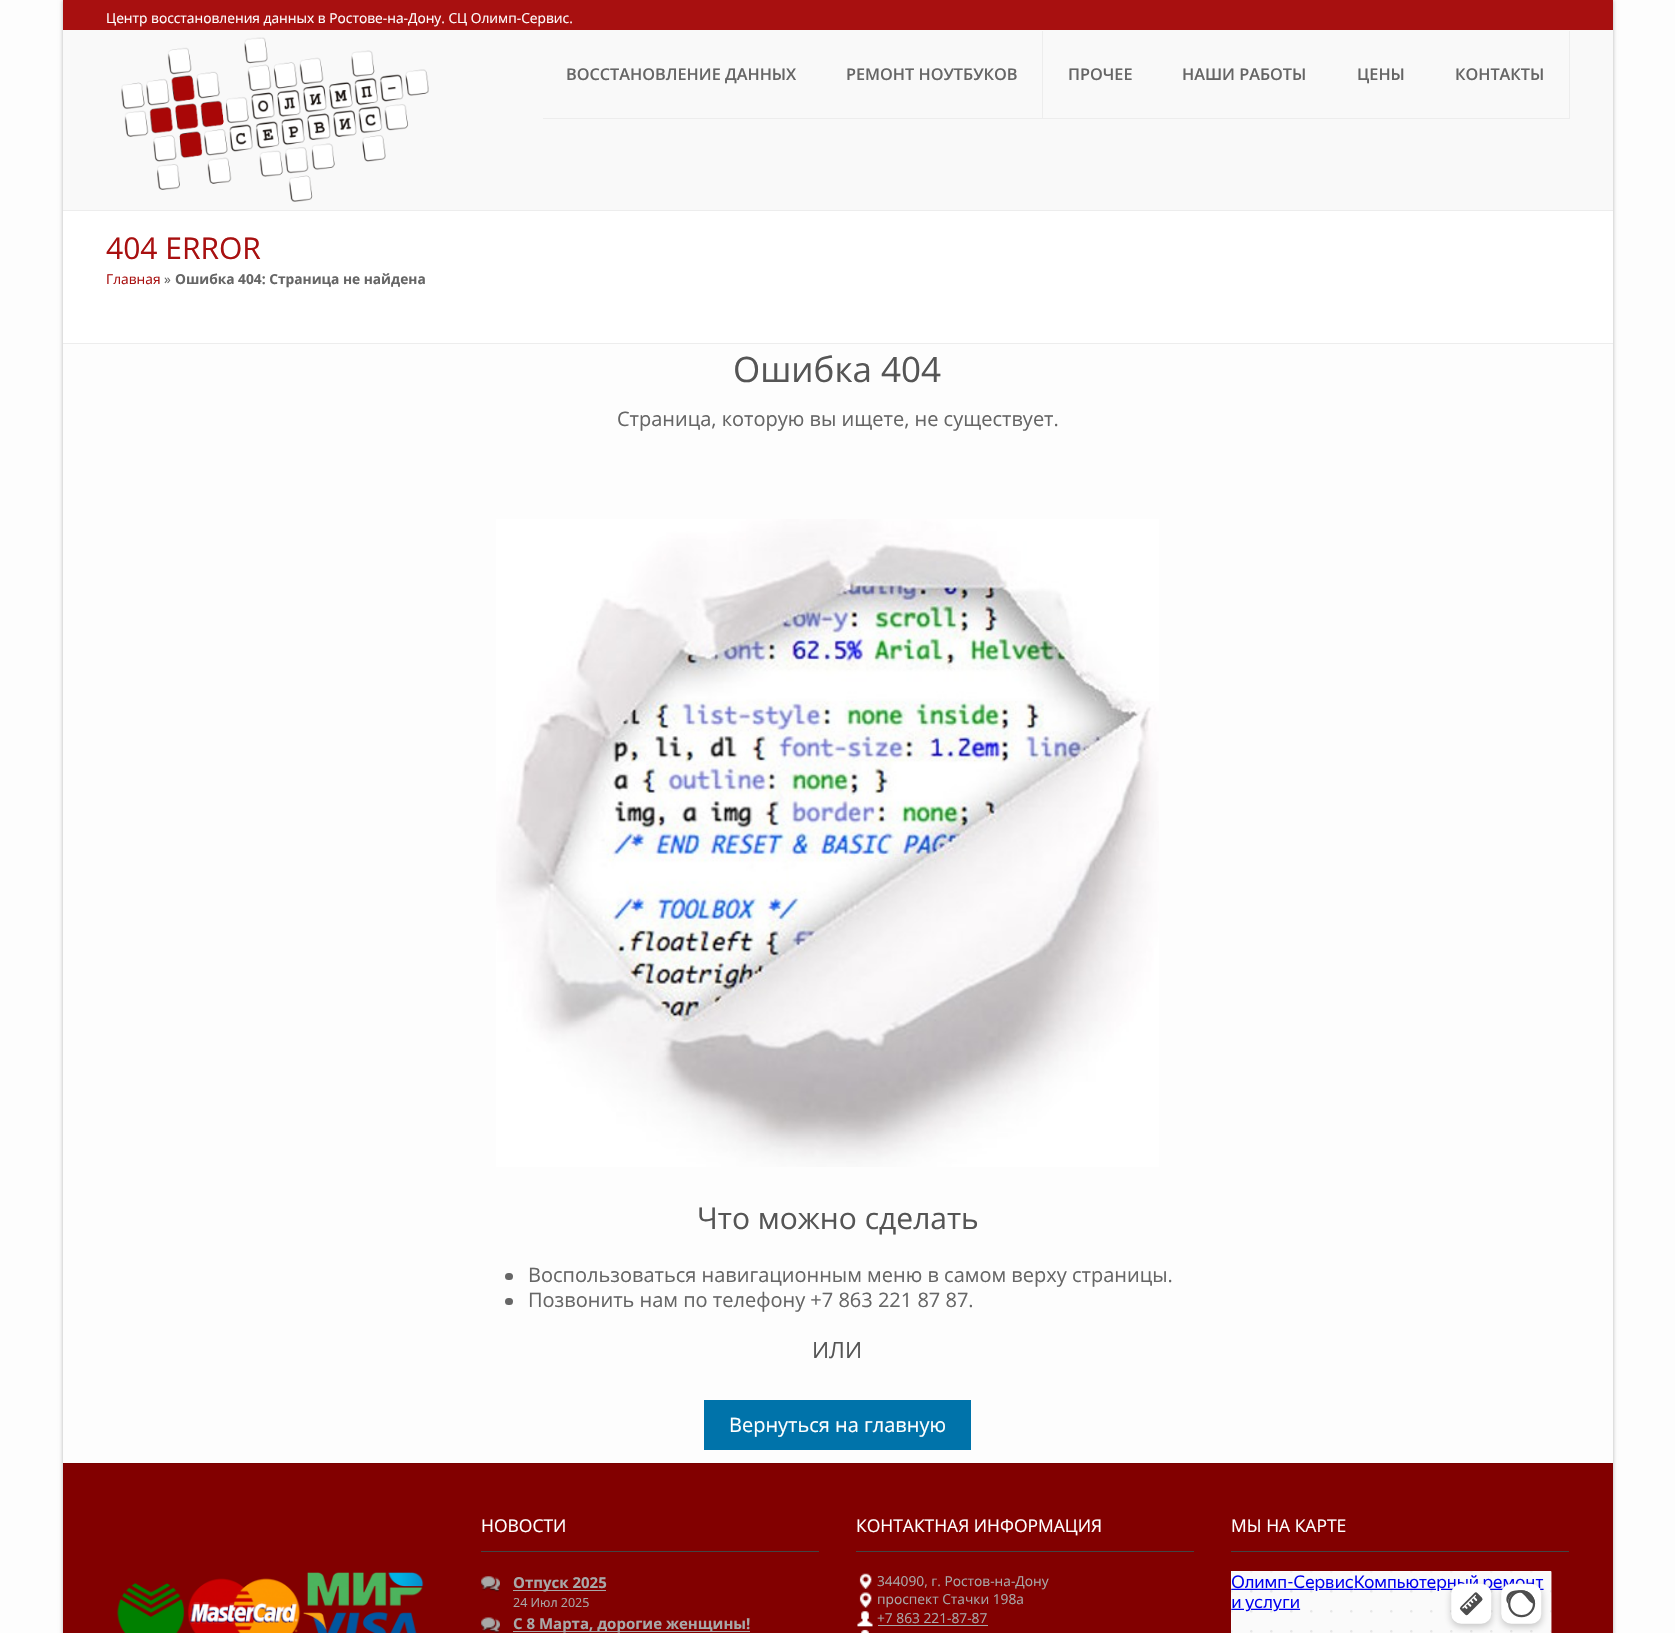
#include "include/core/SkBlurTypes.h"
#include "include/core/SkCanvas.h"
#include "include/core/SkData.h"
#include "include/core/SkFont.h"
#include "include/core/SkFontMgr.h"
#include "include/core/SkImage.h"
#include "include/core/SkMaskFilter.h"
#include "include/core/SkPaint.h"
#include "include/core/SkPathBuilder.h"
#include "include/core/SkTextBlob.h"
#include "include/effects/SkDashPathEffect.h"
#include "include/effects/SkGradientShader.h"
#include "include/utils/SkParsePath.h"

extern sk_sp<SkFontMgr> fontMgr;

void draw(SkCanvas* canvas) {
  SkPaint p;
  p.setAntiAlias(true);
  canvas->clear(SkColorSetRGB(253, 253, 253));
  p.setColor(SkColorSetRGB(180, 180, 180));
  p.setMaskFilter(SkMaskFilter::MakeBlur(kNormal_SkBlurStyle, 2));
  canvas->drawRect(SkRect::MakeLTRB(63, 0, 1613, 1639), p);
  p.setMaskFilter(nullptr);
  p.setColor(SkColorSetRGB(253, 253, 253));
  canvas->drawRect(SkRect::MakeLTRB(63, 344, 1613, 1463), p);
  p.setColor(SkColorSetRGB(168, 16, 16));
  canvas->drawRect(SkRect::MakeLTRB(63, 0, 1613, 30), p);
  p.setColor(SkColorSetRGB(249, 249, 249));
  canvas->drawRect(SkRect::MakeLTRB(63, 30, 1613, 210), p);
  canvas->drawImageRect(SkImages::DeferredFromEncodedData(SkData::MakeFromFileName("images/1.png")), SkRect::MakeLTRB(121, 37, 429, 202), SkSamplingOptions());
  p.setColor(SkColorSetRGB(237, 237, 237));
  canvas->drawPath(SkPathBuilder().moveTo(543, 118).lineTo(543, 119).lineTo(823, 119).lineTo(823, 31).lineTo(821, 31).lineTo(821, 118).close().detach(), p);
  p.setColor(SkColorSetRGB(249, 249, 249));
  canvas->drawRect(SkRect::MakeLTRB(821, 31, 823, 118), p);
  p.setColor(SkColorSetRGB(237, 237, 237));
  canvas->drawPath(SkPathBuilder().moveTo(823, 118).lineTo(823, 119).lineTo(1044, 119).lineTo(1044, 31).lineTo(1042, 31).lineTo(1042, 118).close().detach(), p);
  p.setColor(SkColorSetRGB(249, 249, 249));
  canvas->drawRect(SkRect::MakeLTRB(1043, 31, 1044, 118), p);
  p.setColor(SkColorSetRGB(237, 237, 237));
  canvas->drawPath(SkPathBuilder().moveTo(1044, 118).lineTo(1044, 119).lineTo(1159, 119).lineTo(1159, 31).lineTo(1158, 31).lineTo(1158, 118).close().detach(), p);
  p.setColor(SkColorSetRGB(249, 249, 249));
  canvas->drawRect(SkRect::MakeLTRB(1158, 31, 1159, 118), p);
  p.setColor(SkColorSetRGB(237, 237, 237));
  canvas->drawPath(SkPathBuilder().moveTo(1159, 118).lineTo(1159, 119).lineTo(1333, 119).lineTo(1333, 31).lineTo(1331, 31).lineTo(1331, 118).close().detach(), p);
  p.setColor(SkColorSetRGB(249, 249, 249));
  canvas->drawRect(SkRect::MakeLTRB(1331, 31, 1333, 118), p);
  p.setColor(SkColorSetRGB(237, 237, 237));
  canvas->drawPath(SkPathBuilder().moveTo(1333, 118).lineTo(1333, 119).lineTo(1431, 119).lineTo(1431, 31).lineTo(1430, 31).lineTo(1430, 118).close().detach(), p);
  p.setColor(SkColorSetRGB(249, 249, 249));
  canvas->drawRect(SkRect::MakeLTRB(1430, 31, 1431, 118), p);
  p.setColor(SkColorSetRGB(237, 237, 237));
  canvas->drawPath(SkPathBuilder().moveTo(1431, 118).lineTo(1431, 119).lineTo(1570, 119).lineTo(1570, 31).lineTo(1569, 31).lineTo(1569, 118).close().detach(), p);
  p.setColor(SK_ColorWHITE);
  canvas->drawRect(SkRect::MakeLTRB(63, 211, 1613, 343), p);
  p.setColor(SkColorSetRGB(237, 237, 237));
  canvas->drawRect(SkRect::MakeLTRB(63, 210, 1613, 211), p);
  canvas->drawRect(SkRect::MakeLTRB(63, 343, 1613, 344), p);
  canvas->drawImageRect(SkImages::DeferredFromEncodedData(SkData::MakeFromFileName("images/2.png")), SkRect::MakeLTRB(496, 519, 1159, 1167), SkSamplingOptions());
  p.setColor(SkColorSetRGB(102, 102, 102));
  canvas->drawRoundRect(SkRect::MakeLTRB(505, 1273, 513, 1280), 3.5f, 3.5f, p);
  canvas->drawRoundRect(SkRect::MakeLTRB(505, 1298, 513, 1305), 3.5f, 3.5f, p);
  p.setColor(SkColorSetRGB(0, 115, 170));
  canvas->drawRect(SkRect::MakeLTRB(704, 1400, 971, 1450), p);
  p.setColor(SkColorSetRGB(130, 0, 0));
  canvas->drawRect(SkRect::MakeLTRB(63, 1464, 1613, 1633), p);
  p.setColor(SkColorSetRGB(120, 0, 0));
  canvas->drawRect(SkRect::MakeLTRB(63, 1463, 1613, 1464), p);
  p.setColor(SkColorSetRGB(68, 68, 68));
  canvas->drawRect(SkRect::MakeLTRB(481, 1551, 819, 1552), p);
  canvas->drawImageRect(SkImages::DeferredFromEncodedData(SkData::MakeFromFileName("images/3.png")), SkRect::MakeLTRB(481, 1576, 500, 1592), SkSamplingOptions());
  p.setColor(SkColorSetRGB(168, 168, 168));
  canvas->drawRect(SkRect::MakeLTRB(513, 1590, 606, 1591), p);
  canvas->drawImageRect(SkImages::DeferredFromEncodedData(SkData::MakeFromFileName("images/4.png")), SkRect::MakeLTRB(481, 1617, 500, 1633), SkSamplingOptions());
  canvas->drawRect(SkRect::MakeLTRB(513, 1631, 750, 1632), p);
  p.setColor(SkColorSetRGB(68, 68, 68));
  canvas->drawRect(SkRect::MakeLTRB(856, 1551, 1194, 1552), p);
  canvas->drawImageRect(SkImages::DeferredFromEncodedData(SkData::MakeFromFileName("images/5.png")), SkRect::MakeLTRB(859, 1573, 872, 1590), SkSamplingOptions());
  canvas->drawImageRect(SkImages::DeferredFromEncodedData(SkData::MakeFromFileName("images/6.png")), SkRect::MakeLTRB(859, 1592, 872, 1609), SkSamplingOptions());
  canvas->drawImageRect(SkImages::DeferredFromEncodedData(SkData::MakeFromFileName("images/7.png")), SkRect::MakeLTRB(857, 1611, 873, 1628), SkSamplingOptions());
  p.setColor(SkColorSetRGB(168, 168, 168));
  canvas->drawRect(SkRect::MakeLTRB(878, 1625, 988, 1626), p);
  canvas->drawImageRect(SkImages::DeferredFromEncodedData(SkData::MakeFromFileName("images/8.png")), SkRect::MakeLTRB(861, 1629, 869, 1633), SkSamplingOptions());
  p.setColor(SkColorSetRGB(68, 68, 68));
  canvas->drawRect(SkRect::MakeLTRB(1231, 1551, 1569, 1552), p);
  p.setColor(SK_ColorWHITE);
  canvas->drawRect(SkRect::MakeLTRB(1231, 1571, 1551, 1633), p);
  canvas->drawImageRect(SkImages::DeferredFromEncodedData(SkData::MakeFromFileName("images/9.png")), SkRect::MakeLTRB(1231, 1571, 1552, 1633), SkSamplingOptions());
  canvas->drawImageRect(SkImages::DeferredFromEncodedData(SkData::MakeFromFileName("images/10.png")), SkRect::MakeLTRB(117, 1572, 424, 1633), SkSamplingOptions());
  SkFont font1(fontMgr->matchFamilyStyle("Open Sans", SkFontStyle::Normal()), 13.75f);
  font1.setSubpixel(true);
  canvas->drawString("Центр восстановления данных в Ростове-на-Дону. СЦ Олимп-Сервис.", 106, 23, font1, p);
  SkFont font2(fontMgr->matchFamilyStyle("Open Sans", SkFontStyle(600, SkFontStyle::kNormal_Width, SkFontStyle::kUpright_Slant)), 16.25f);
  font2.setSubpixel(true);
  p.setColor(SkColorSetRGB(102, 102, 102));
  canvas->drawString("ВОССТАНОВЛЕНИЕ ДАННЫХ", 566, 80, font2, p);
  canvas->drawString("РЕМОНТ НОУТБУКОВ", 846, 80, font2, p);
  canvas->drawString("ПРОЧЕЕ", 1068, 80, font2, p);
  canvas->drawString("НАШИ РАБОТЫ", 1182, 80, font2, p);
  canvas->drawString("ЦЕНЫ", 1357, 80, font2, p);
  canvas->drawString("КОНТАКТЫ", 1455, 80, font2, p);
  SkFont font3(fontMgr->matchFamilyStyle("Open Sans", SkFontStyle::Normal()), 30);
  font3.setSubpixel(true);
  p.setColor(SkColorSetRGB(168, 16, 16));
  canvas->drawString("404 ERROR", 106, 259, font3, p);
  canvas->drawString("Главная", 106, 284, font1, p);
  p.setColor(SkColorSetRGB(102, 102, 102));
  canvas->drawString("»", 164, 284, font1, p);
  SkFont font4(fontMgr->matchFamilyStyle("Open Sans", SkFontStyle::Bold()), 13.75f);
  font4.setSubpixel(true);
  canvas->drawString("Ошибка 404: Страница не найдена", 175, 284, font4, p);
  SkFont font5(fontMgr->matchFamilyStyle("Open Sans", SkFontStyle::Normal()), 35);
  font5.setSubpixel(true);
  p.setColor(SkColorSetRGB(85, 85, 85));
  canvas->drawString("Ошибка 404", 733, 382, font5, p);
  SkFont font6(fontMgr->matchFamilyStyle("Open Sans", SkFontStyle::Normal()), 20);
  font6.setSubpixel(true);
  p.setColor(SkColorSetRGB(102, 102, 102));
  canvas->drawString("Страница, которую вы ищете, не существует.", 617, 426, font6, p);
  p.setColor(SkColorSetRGB(85, 85, 85));
  canvas->drawString("Что можно сделать", 697, 1229, font3, p);
  p.setColor(SkColorSetRGB(102, 102, 102));
  canvas->drawString("Воспользоваться навигационным меню в самом верху страницы.", 528, 1282, font6, p);
  canvas->drawString("Позвонить нам по телефону +7 863 221 87 87.", 528, 1307, font6, p);
  SkFont font7(fontMgr->matchFamilyStyle("Open Sans", SkFontStyle::Normal()), 22.5f);
  font7.setSubpixel(true);
  p.setColor(SkColorSetRGB(85, 85, 85));
  canvas->drawString("ИЛИ", 812, 1358, font7, p);
  p.setColor(SK_ColorWHITE);
  canvas->drawString("Вернуться на главную", 729, 1432, font6, p);
  SkFont font8(fontMgr->matchFamilyStyle("Open Sans", SkFontStyle::Normal()), 17.5f);
  font8.setSubpixel(true);
  canvas->drawString("НОВОСТИ", 481, 1532, font8, p);
  SkFont font9(fontMgr->matchFamilyStyle("Open Sans", SkFontStyle::Bold()), 15);
  font9.setSubpixel(true);
  p.setColor(SkColorSetRGB(168, 168, 168));
  canvas->drawString("Отпуск 2025", 513, 1588, font9, p);
  SkFont font10(fontMgr->matchFamilyStyle("Open Sans", SkFontStyle::Normal()), 12.5f);
  font10.setSubpixel(true);
  canvas->drawString("24 Июл 2025", 513, 1607, font10, p);
  canvas->drawString("С 8 Марта, дорогие женщины!", 513, 1629, font9, p);
  p.setColor(SK_ColorWHITE);
  canvas->drawString("КОНТАКТНАЯ ИНФОРМАЦИЯ", 856, 1532, font8, p);
  p.setColor(SkColorSetRGB(168, 168, 168));
  canvas->drawString("344090, г. Ростов-на-Дону", 877, 1586, font1, p);
  canvas->drawString("проспект Стачки 198а", 877, 1604, font1, p);
  canvas->drawString("+7 863 221-87-87", 877, 1623, font1, p);
  p.setColor(SK_ColorWHITE);
  canvas->drawString("МЫ НА КАРТЕ", 1231, 1532, font8, p);
}
